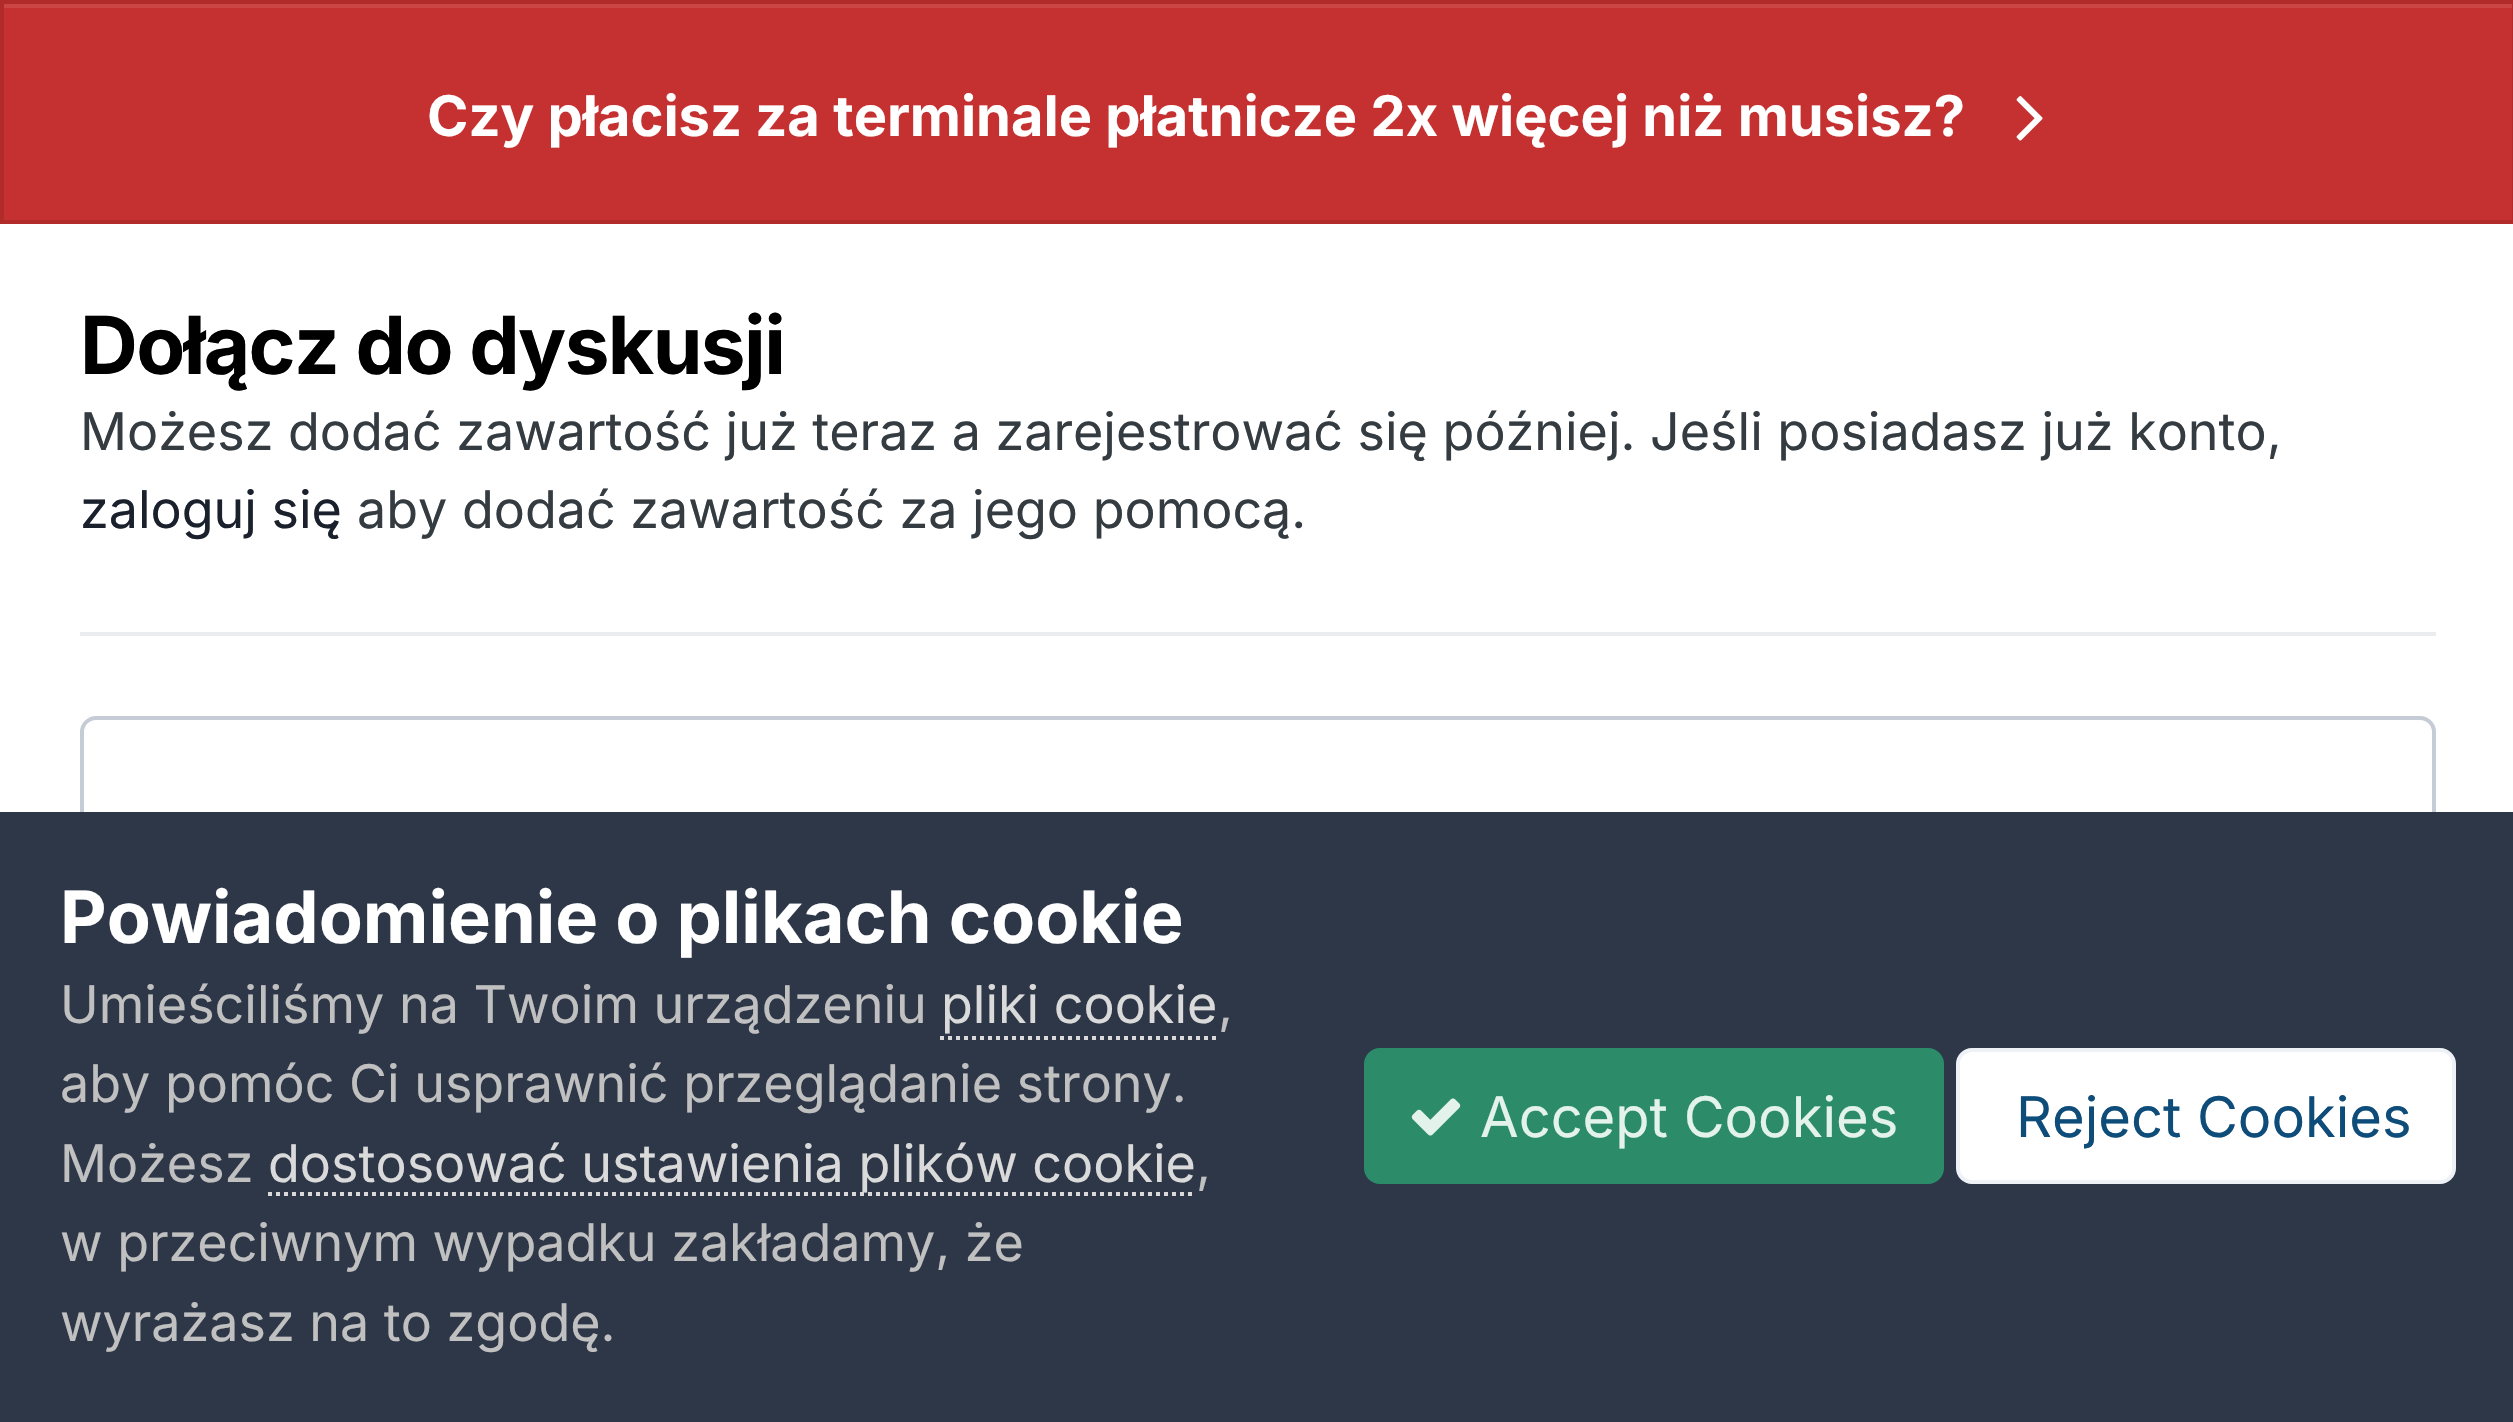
#include "include/core/SkBlurTypes.h"
#include "include/core/SkCanvas.h"
#include "include/core/SkData.h"
#include "include/core/SkFont.h"
#include "include/core/SkFontMgr.h"
#include "include/core/SkImage.h"
#include "include/core/SkMaskFilter.h"
#include "include/core/SkPaint.h"
#include "include/core/SkPathBuilder.h"
#include "include/core/SkTextBlob.h"
#include "include/effects/SkDashPathEffect.h"
#include "include/effects/SkGradientShader.h"
#include "include/utils/SkParsePath.h"

extern sk_sp<SkFontMgr> fontMgr;

void draw(SkCanvas* canvas) {
  SkPaint p;
  p.setAntiAlias(true);
  auto spacedText = [&](const char* s, float x, float y, const SkFont& font, const SkPaint& ink, float letter, float word) {
    std::vector<SkGlyphID> glyphs(font.countText(s, strlen(s), SkTextEncoding::kUTF8));
    std::vector<float> xs(glyphs.size());
    font.textToGlyphs(s, strlen(s), SkTextEncoding::kUTF8, glyphs);
    font.getXPos(glyphs, xs, x);
    float extra = 0;
    for (size_t i = 0; i < glyphs.size(); i++) {
      xs[i] += extra;
      extra += letter + word * (glyphs[i] == font.unicharToGlyph(' '));
    }
    canvas->drawTextBlob(SkTextBlob::MakeFromPosHGlyphs(glyphs, xs, y, font), 0, 0, ink);
  };
  canvas->clear(SK_ColorWHITE);
  p.setColor(SkColorSetRGB(197, 48, 48));
  canvas->drawRect(SkRect::MakeLTRB(4, 8, 2512, 220), p);
  p.setColor(SkColorSetRGB(203, 69, 69));
  canvas->drawRect(SkRect::MakeLTRB(4, 4, 2512, 8), p);
  p.setStyle(SkPaint::kStroke_Style);
  p.setStrokeWidth(4);
  p.setColor(SkColorSetRGB(177, 43, 43));
  canvas->drawRect(SkRect::MakeLTRB(2, 2, 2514, 222), p);
  canvas->drawImageRect(SkImages::DeferredFromEncodedData(SkData::MakeFromFileName("images/1.png")), SkRect::MakeLTRB(2016, 96, 2043, 141), SkSamplingOptions());
  p.setStyle(SkPaint::kFill_Style);
  p.setColor(SkColorSetRGB(234, 236, 239));
  canvas->drawRect(SkRect::MakeLTRB(80, 632, 2436, 636), p);
  p.setStyle(SkPaint::kStroke_Style);
  p.setColor(SkColorSetRGB(198, 204, 213));
  canvas->drawRoundRect(SkRect::MakeLTRB(82, 718, 2434, 946), 14, 14, p);
  p.setStyle(SkPaint::kFill_Style);
  p.setColor(SkColorSetRGB(45, 55, 72));
  canvas->drawRect(SkRect::MakeLTRB(0, 812, 2513, 1422), p);
  p.setStyle(SkPaint::kStroke_Style);
  p.setColor(SkColorSetRGB(218, 218, 218));
  p.setPathEffect(SkDashPathEffect::Make({{4, 4}}, 0));
  canvas->drawPath(SkPathBuilder().moveTo(940, 1038).lineTo(1216, 1038).detach(), p);
  p.setPathEffect(nullptr);
  p.setPathEffect(SkDashPathEffect::Make({{4, 4}}, 0));
  canvas->drawPath(SkPathBuilder().moveTo(268, 1194).lineTo(1196, 1194).detach(), p);
  p.setPathEffect(nullptr);
  p.setStyle(SkPaint::kFill_Style);
  p.setColor(SkColorSetRGB(44, 140, 105));
  canvas->drawRoundRect(SkRect::MakeLTRB(1364, 1048, 1944, 1184), 16, 16, p);
  canvas->drawImageRect(SkImages::DeferredFromEncodedData(SkData::MakeFromFileName("images/2.png")), SkRect::MakeLTRB(1411, 1098, 1461, 1136), SkSamplingOptions());
  p.setColor(SK_ColorWHITE);
  canvas->drawRoundRect(SkRect::MakeLTRB(1956, 1048, 2456, 1184), 16, 16, p);
  p.setStyle(SkPaint::kStroke_Style);
  p.setColor(SkColorSetARGB(18, 14, 76, 121));
  canvas->drawRoundRect(SkRect::MakeLTRB(1958, 1050, 2454, 1182), 14, 14, p);
  SkFont font1(fontMgr->matchFamilyStyle("Inter", SkFontStyle::Bold()), 56);
  font1.setSubpixel(true);
  p.setStyle(SkPaint::kFill_Style);
  p.setColor(SK_ColorWHITE);
  canvas->drawString("Czy płacisz za terminale płatnicze 2x więcej niż musisz?", 427, 136, font1, p);
  SkFont font2(fontMgr->matchFamilyStyle("Inter", SkFontStyle::Bold()), 80);
  font2.setSubpixel(true);
  p.setColor(SK_ColorBLACK);
  spacedText("Dołącz do dyskusji", 80, 374, font2, p, -1.6f, 0);
  SkFont font3(fontMgr->matchFamilyStyle("Inter", SkFontStyle::Normal()), 52);
  font3.setSubpixel(true);
  p.setColor(SkColorSetRGB(53, 60, 65));
  canvas->drawString("Możesz dodać zawartość już teraz a zarejestrować się później. Jeśli posiadasz już konto,", 80, 450, font3, p);
  p.setColor(SkColorSetRGB(26, 32, 44));
  canvas->drawString("zaloguj się", 80, 528, font3, p);
  p.setColor(SkColorSetRGB(53, 60, 65));
  canvas->drawString("aby dodać zawartość za jego pomocą.", 357, 528, font3, p);
  SkFont font4(fontMgr->matchFamilyStyle("Inter", SkFontStyle::Bold()), 72);
  font4.setSubpixel(true);
  p.setColor(SK_ColorWHITE);
  canvas->drawString("Powiadomienie o plikach cookie", 60, 943, font4, p);
  p.setColor(SkColorSetRGB(192, 192, 192));
  canvas->drawString("Umieściliśmy na Twoim urządzeniu", 60, 1023, font3, p);
  p.setColor(SkColorSetRGB(218, 218, 218));
  canvas->drawString("pliki cookie", 941, 1023, font3, p);
  p.setColor(SkColorSetRGB(192, 192, 192));
  canvas->drawString(",", 1218, 1023, font3, p);
  canvas->drawString("aby pomóc Ci usprawnić przeglądanie strony.", 60, 1102, font3, p);
  canvas->drawString("Możesz", 60, 1182, font3, p);
  p.setColor(SkColorSetRGB(218, 218, 218));
  canvas->drawString("dostosować ustawienia plików cookie", 268, 1182, font3, p);
  p.setColor(SkColorSetRGB(192, 192, 192));
  canvas->drawString(",", 1196, 1182, font3, p);
  canvas->drawString("w przeciwnym wypadku zakładamy, że", 60, 1261, font3, p);
  canvas->drawString("wyrażasz na to zgodę.", 60, 1341, font3, p);
  SkFont font5(fontMgr->matchFamilyStyle("Inter", SkFontStyle::Normal()), 56);
  font5.setSubpixel(true);
  p.setColor(SkColorSetRGB(227, 243, 236));
  canvas->drawString("Accept Cookies", 1480, 1137, font5, p);
  p.setColor(SkColorSetRGB(14, 76, 121));
  canvas->drawString("Reject Cookies", 2016, 1137, font5, p);
}
